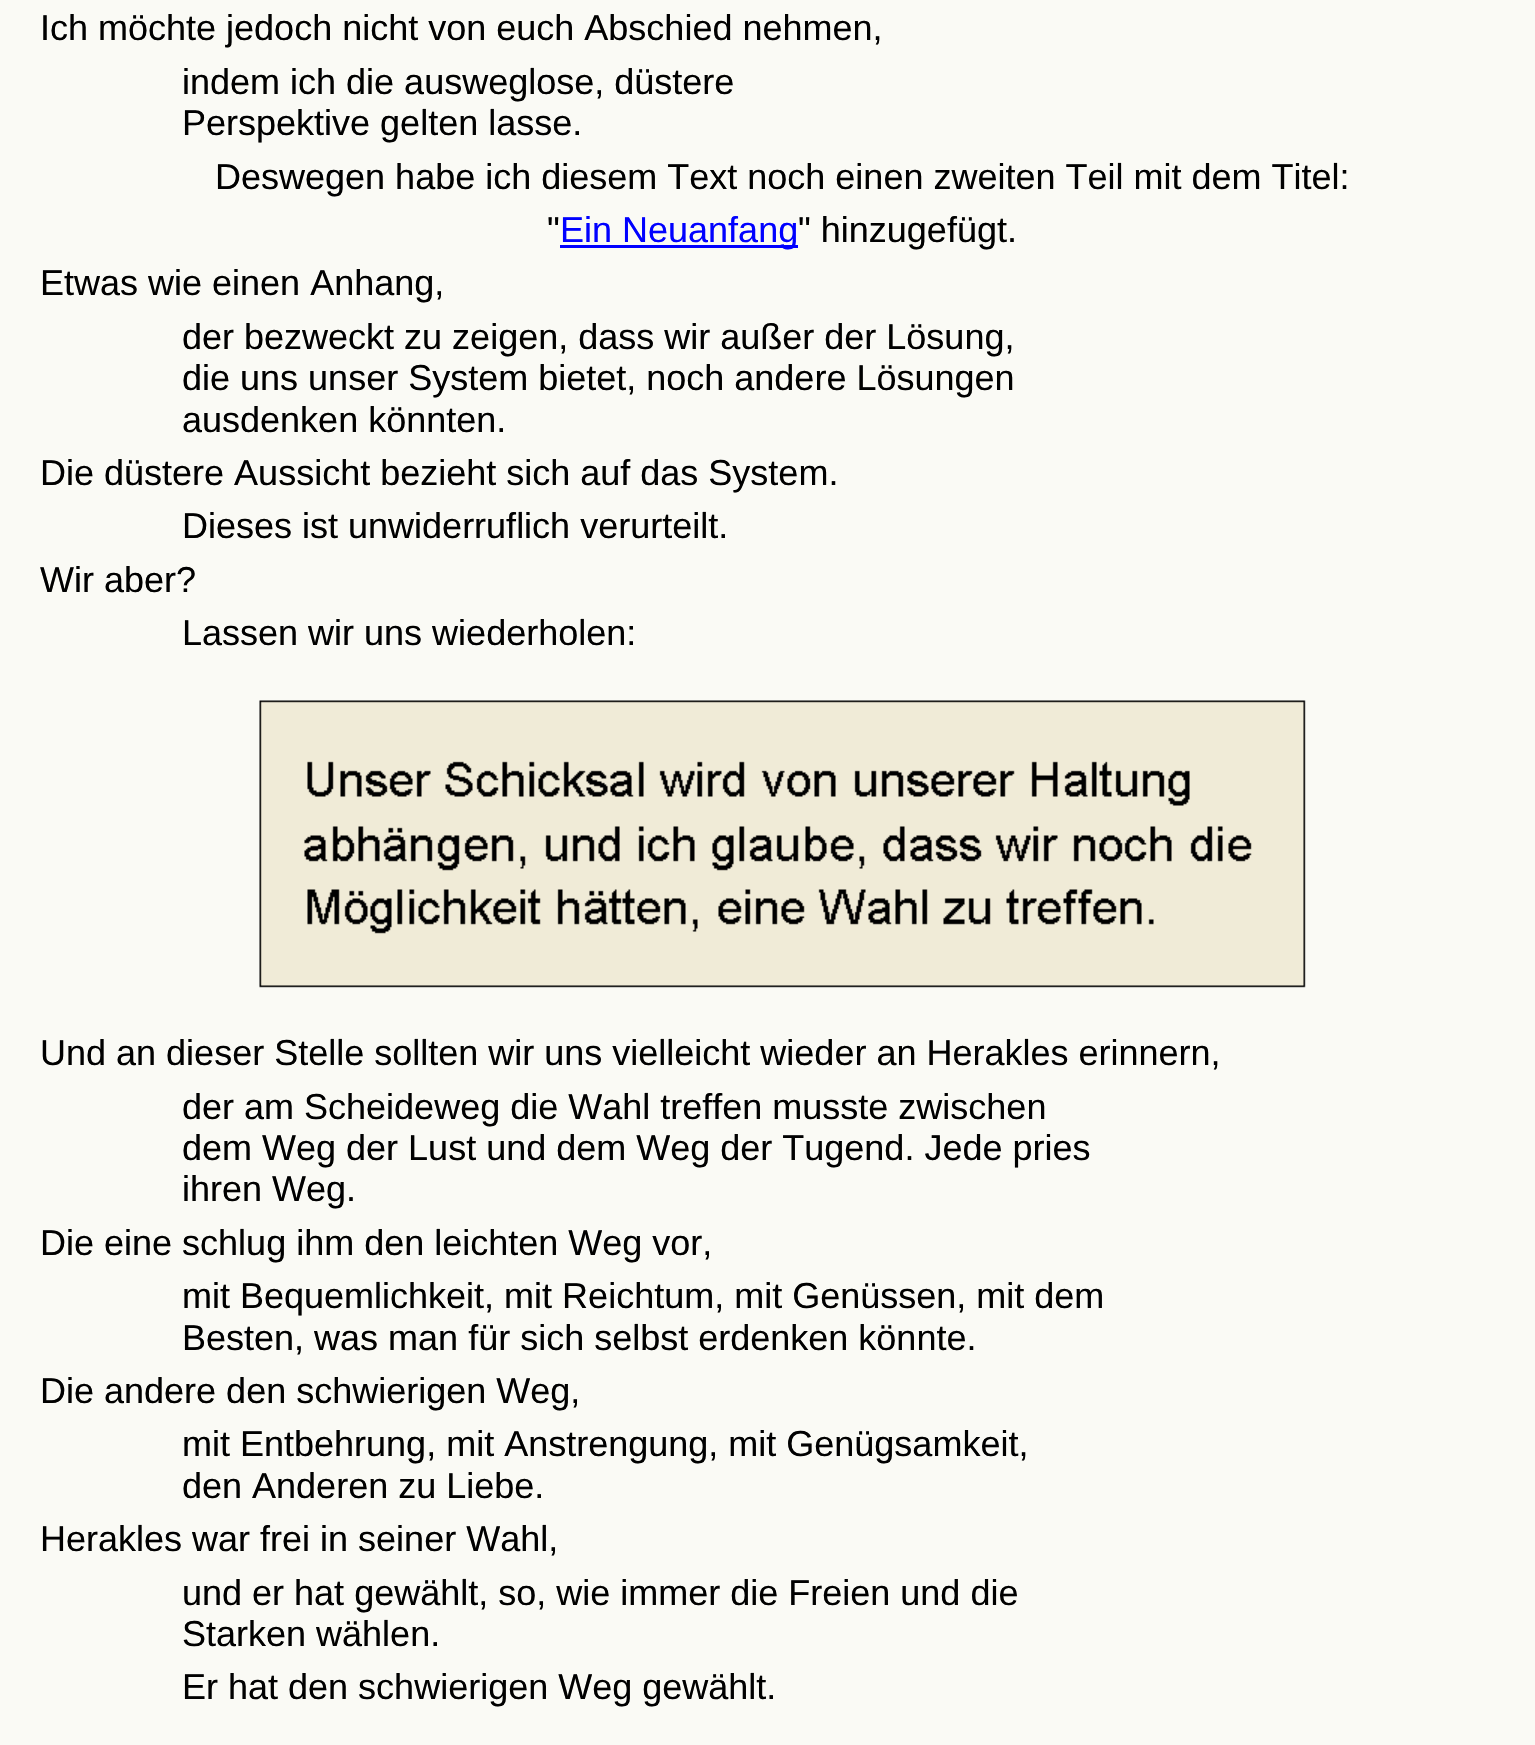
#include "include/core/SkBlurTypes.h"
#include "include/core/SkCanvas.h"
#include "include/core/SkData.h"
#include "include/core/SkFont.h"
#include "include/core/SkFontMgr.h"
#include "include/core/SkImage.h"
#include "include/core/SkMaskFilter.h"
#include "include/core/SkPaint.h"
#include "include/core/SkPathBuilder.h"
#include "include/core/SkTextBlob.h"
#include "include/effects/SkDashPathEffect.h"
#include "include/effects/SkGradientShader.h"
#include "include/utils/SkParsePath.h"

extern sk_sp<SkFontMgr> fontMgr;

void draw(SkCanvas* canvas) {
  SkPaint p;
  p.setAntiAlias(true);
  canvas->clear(SkColorSetRGB(250, 250, 245));
  p.setColor(SkColorSetRGB(0, 0, 255));
  canvas->drawRect(SkRect::MakeLTRB(560, 245, 798, 248), p);
  canvas->drawImageRect(SkImages::DeferredFromEncodedData(SkData::MakeFromFileName("images/1.png")), SkRect::MakeLTRB(259, 700, 1306, 988), SkSamplingOptions());
  SkFont font1(fontMgr->matchFamilyStyle("Liberation Sans", SkFontStyle::Normal()), 36);
  font1.setSubpixel(true);
  p.setColor(SK_ColorBLACK);
  canvas->drawString("Ich möchte jedoch nicht von euch Abschied nehmen,", 40, 40, font1, p);
  canvas->drawString("indem ich die ausweglose, düstere", 182, 94, font1, p);
  canvas->drawString("Perspektive gelten lasse.", 182, 135, font1, p);
  canvas->drawString("Deswegen habe ich diesem Text noch einen zweiten Teil mit dem Titel:", 215, 189, font1, p);
  canvas->drawString("\"", 547, 242, font1, p);
  p.setColor(SkColorSetRGB(0, 0, 255));
  canvas->drawString("Ein Neuanfang", 560, 242, font1, p);
  p.setColor(SK_ColorBLACK);
  canvas->drawString("\" hinzugefügt.", 798, 242, font1, p);
  canvas->drawString("Etwas wie einen Anhang,", 40, 295, font1, p);
  canvas->drawString("der bezweckt zu zeigen, dass wir außer der Lösung,", 182, 349, font1, p);
  canvas->drawString("die uns unser System bietet, noch andere Lösungen", 182, 390, font1, p);
  canvas->drawString("ausdenken könnten.", 182, 432, font1, p);
  canvas->drawString("Die düstere Aussicht bezieht sich auf das System.", 40, 485, font1, p);
  canvas->drawString("Dieses ist unwiderruflich verurteilt.", 182, 538, font1, p);
  canvas->drawString("Wir aber?", 40, 592, font1, p);
  canvas->drawString("Lassen wir uns wiederholen:", 182, 645, font1, p);
  canvas->drawString("Und an dieser Stelle sollten wir uns vielleicht wieder an Herakles erinnern,", 40, 1065, font1, p);
  canvas->drawString("der am Scheideweg die Wahl treffen musste zwischen", 182, 1119, font1, p);
  canvas->drawString("dem Weg der Lust und dem Weg der Tugend. Jede pries", 182, 1160, font1, p);
  canvas->drawString("ihren Weg.", 182, 1201, font1, p);
  canvas->drawString("Die eine schlug ihm den leichten Weg vor,", 40, 1255, font1, p);
  canvas->drawString("mit Bequemlichkeit, mit Reichtum, mit Genüssen, mit dem", 182, 1308, font1, p);
  canvas->drawString("Besten, was man für sich selbst erdenken könnte.", 182, 1350, font1, p);
  canvas->drawString("Die andere den schwierigen Weg,", 40, 1403, font1, p);
  canvas->drawString("mit Entbehrung, mit Anstrengung, mit Genügsamkeit,", 182, 1456, font1, p);
  canvas->drawString("den Anderen zu Liebe.", 182, 1498, font1, p);
  canvas->drawString("Herakles war frei in seiner Wahl,", 40, 1551, font1, p);
  canvas->drawString("und er hat gewählt, so, wie immer die Freien und die", 182, 1605, font1, p);
  canvas->drawString("Starken wählen.", 182, 1646, font1, p);
  canvas->drawString("Er hat den schwierigen Weg gewählt.", 182, 1699, font1, p);
}
